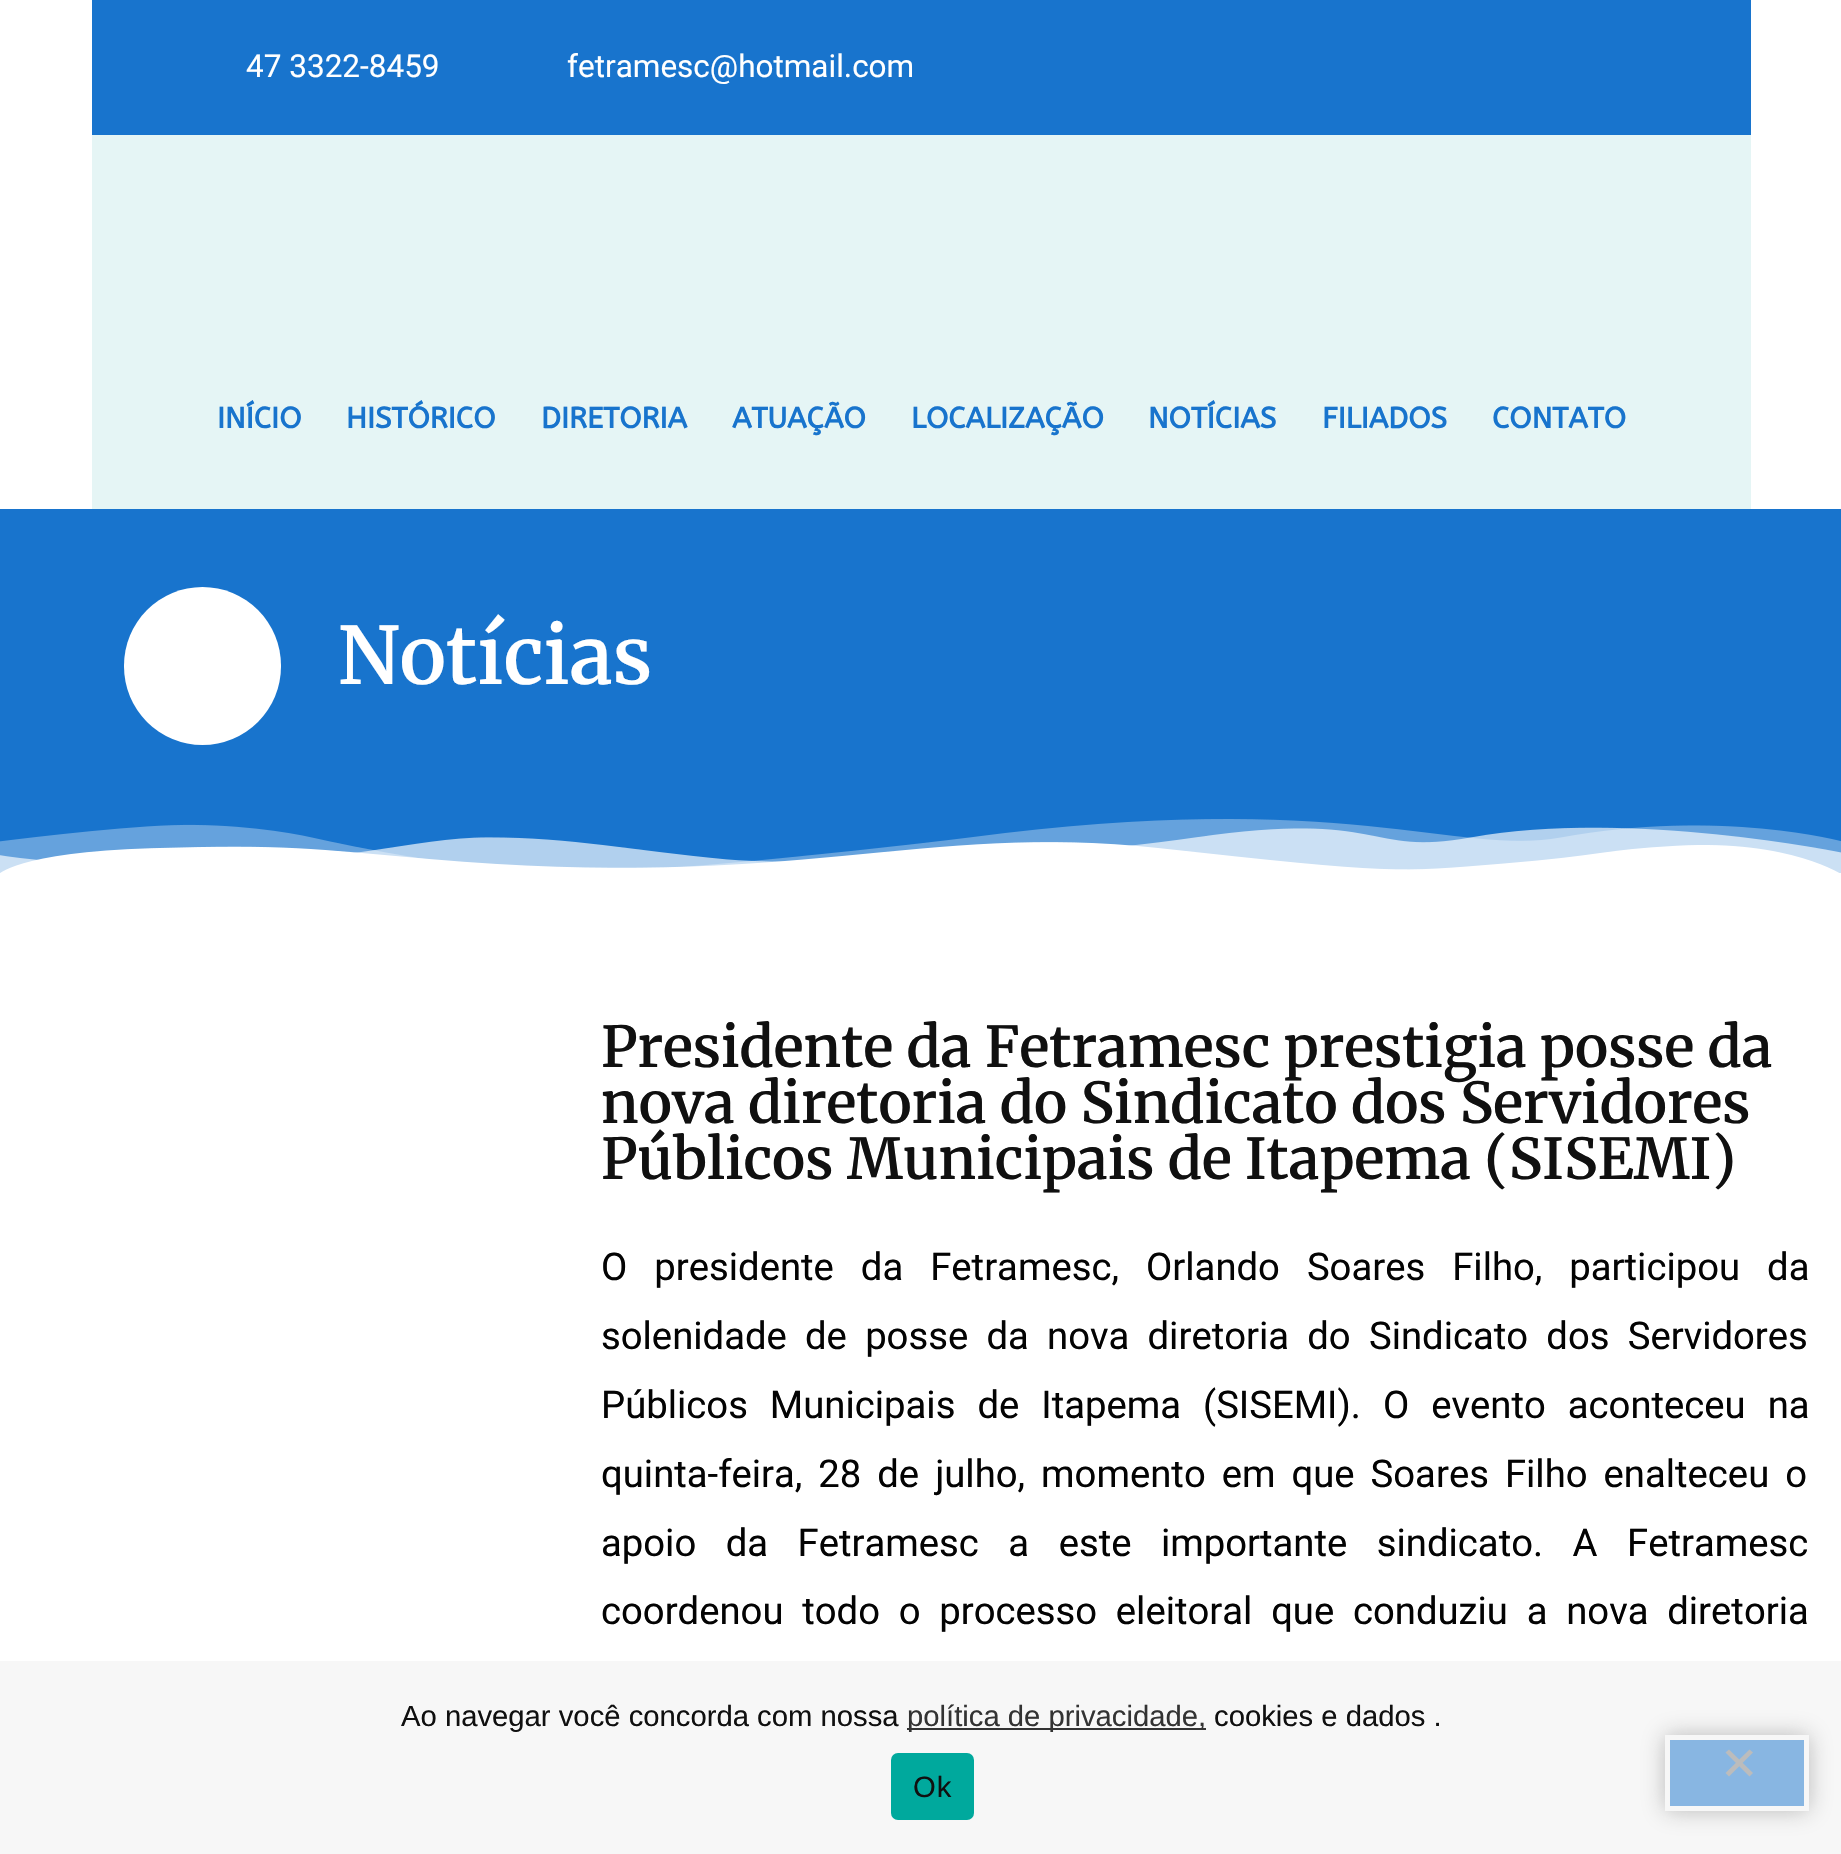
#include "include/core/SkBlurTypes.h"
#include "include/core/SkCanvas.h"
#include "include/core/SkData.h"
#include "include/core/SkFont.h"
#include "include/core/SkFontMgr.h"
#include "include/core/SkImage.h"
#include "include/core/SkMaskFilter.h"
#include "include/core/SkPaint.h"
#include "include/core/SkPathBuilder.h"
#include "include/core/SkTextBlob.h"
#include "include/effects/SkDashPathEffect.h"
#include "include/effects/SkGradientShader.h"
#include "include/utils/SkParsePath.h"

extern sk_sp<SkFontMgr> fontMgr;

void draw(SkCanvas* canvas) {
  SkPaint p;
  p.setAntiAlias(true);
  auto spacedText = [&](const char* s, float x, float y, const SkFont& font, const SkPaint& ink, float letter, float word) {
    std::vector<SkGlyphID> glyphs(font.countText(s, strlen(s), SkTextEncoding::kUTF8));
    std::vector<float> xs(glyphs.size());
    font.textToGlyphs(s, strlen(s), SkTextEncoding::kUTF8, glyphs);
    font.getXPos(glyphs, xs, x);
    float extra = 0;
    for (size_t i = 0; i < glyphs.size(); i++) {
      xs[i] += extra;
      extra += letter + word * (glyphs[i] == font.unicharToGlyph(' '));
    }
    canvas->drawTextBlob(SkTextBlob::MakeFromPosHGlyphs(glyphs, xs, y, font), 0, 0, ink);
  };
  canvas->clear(SK_ColorWHITE);
  p.setColor(SkColorSetRGB(24, 116, 205));
  canvas->drawRect(SkRect::MakeLTRB(92, 0, 1751, 135), p);
  p.setColor(SkColorSetRGB(229, 245, 245));
  canvas->drawRect(SkRect::MakeLTRB(92, 135, 1751, 509), p);
  p.setColor(SkColorSetRGB(24, 116, 205));
  canvas->drawRect(SkRect::MakeLTRB(0, 509, 1841, 873), p);
  p.setColor(SK_ColorWHITE);
  canvas->drawRoundRect(SkRect::MakeLTRB(124, 587, 281, 745), 78.5f, 78.5f, p);
  canvas->drawImageRect(SkImages::DeferredFromEncodedData(SkData::MakeFromFileName("images/1.png")), SkRect::MakeLTRB(0, 819, 1841, 873), SkSamplingOptions());
  p.setColor(SkColorSetRGB(247, 247, 247));
  canvas->drawRect(SkRect::MakeLTRB(0, 1661, 1841, 1854), p);
  p.setColor(SkColorSetRGB(51, 51, 51));
  canvas->drawRect(SkRect::MakeLTRB(907, 1728, 1206, 1730), p);
  p.setColor(SkColorSetARGB(128, 124, 124, 124));
  p.setMaskFilter(SkMaskFilter::MakeBlur(kNormal_SkBlurStyle, 11));
  canvas->drawRect(SkRect::MakeLTRB(1665, 1735, 1809, 1811), p);
  p.setMaskFilter(nullptr);
  p.setColor(SkColorSetRGB(136, 182, 226));
  canvas->drawRect(SkRect::MakeLTRB(1667.5f, 1737.5f, 1806.5f, 1808.5f), p);
  p.setStyle(SkPaint::kStroke_Style);
  p.setStrokeWidth(5);
  p.setColor(SkColorSetRGB(247, 247, 247));
  canvas->drawRect(SkRect::MakeLTRB(1667.5f, 1737.5f, 1806.5f, 1808.5f), p);
  p.setStyle(SkPaint::kFill_Style);
  p.setColor(SkColorSetRGB(188, 188, 188));
  canvas->drawPath(SkPathBuilder().moveTo(1749.5f, 1749.5f).lineTo(1753, 1752.5f).lineTo(1729, 1776.5f).lineTo(1725.5f, 1773).close().detach(), p);
  canvas->drawPath(SkPathBuilder().moveTo(1725.5f, 1752.5f).lineTo(1729, 1749.5f).lineTo(1753, 1773).lineTo(1749.5f, 1776.5f).close().detach(), p);
  p.setColor(SkColorSetRGB(0, 169, 157));
  canvas->drawRoundRect(SkRect::MakeLTRB(891, 1753, 974, 1820), 7, 7, p);
  SkFont font1(fontMgr->matchFamilyStyle("Roboto", SkFontStyle::Normal()), 31.5f);
  font1.setSubpixel(true);
  p.setColor(SK_ColorWHITE);
  canvas->drawString("47 3322-8459", 246, 77, font1, p);
  canvas->drawString("fetramesc@hotmail.com", 567, 77, font1, p);
  SkFont font2(fontMgr->matchFamilyStyle("ABeeZee", SkFontStyle::Bold()), 29.25f);
  font2.setSubpixel(true);
  p.setColor(SkColorSetRGB(24, 116, 205));
  canvas->drawString("INÍCIO", 217, 428, font2, p);
  canvas->drawString("HISTÓRICO", 346, 428, font2, p);
  canvas->drawString("DIRETORIA", 541, 428, font2, p);
  canvas->drawString("ATUAÇÃO", 732, 428, font2, p);
  canvas->drawString("LOCALIZAÇÃO", 911, 428, font2, p);
  canvas->drawString("NOTÍCIAS", 1148, 428, font2, p);
  canvas->drawString("FILIADOS", 1322, 428, font2, p);
  canvas->drawString("CONTATO", 1492, 428, font2, p);
  SkFont font3(fontMgr->matchFamilyStyle("Merriweather", SkFontStyle(600, SkFontStyle::kNormal_Width, SkFontStyle::kUpright_Slant)), 79);
  font3.setSubpixel(true);
  p.setColor(SK_ColorWHITE);
  canvas->drawString("Notícias", 338, 684, font3, p);
  SkFont font4(fontMgr->matchFamilyStyle("Merriweather", SkFontStyle(600, SkFontStyle::kNormal_Width, SkFontStyle::kUpright_Slant)), 56.25f);
  font4.setSubpixel(true);
  p.setColor(SkColorSetRGB(16, 16, 16));
  canvas->drawString("Presidente da Fetramesc prestigia posse da", 601, 1067, font4, p);
  canvas->drawString("nova diretoria do Sindicato dos Servidores", 601, 1123, font4, p);
  canvas->drawString("Públicos Municipais de Itapema (SISEMI)", 601, 1179, font4, p);
  SkFont font5(fontMgr->matchFamilyStyle("Roboto", SkFontStyle::Normal()), 38.25f);
  font5.setSubpixel(true);
  p.setColor(SkColorSetRGB(3, 3, 3));
  spacedText("O presidente da Fetramesc, Orlando Soares Filho, participou da", 601, 1280, font5, p, 0, 17.5f);
  spacedText("solenidade de posse da nova diretoria do Sindicato dos Servidores", 601, 1349, font5, p, 0, 8.75f);
  spacedText("Públicos Municipais de Itapema (SISEMI). O evento aconteceu na", 601, 1418, font5, p, 0, 12.5f);
  spacedText("quinta-feira, 28 de julho, momento em que Soares Filho enalteceu o", 601, 1487, font5, p, 0, 6.5f);
  spacedText("apoio da Fetramesc a este importante sindicato. A Fetramesc", 601, 1556, font5, p, 0, 20);
  spacedText("coordenou todo o processo eleitoral que conduziu a nova diretoria", 601, 1624, font5, p, 0, 9.25f);
  SkFont font6(fontMgr->matchFamilyStyle("Liberation Sans", SkFontStyle::Normal()), 29.25f);
  font6.setSubpixel(true);
  p.setColor(SkColorSetRGB(16, 16, 16));
  canvas->drawString("Ao navegar você concorda com nossa", 401, 1726, font6, p);
  p.setColor(SkColorSetRGB(51, 51, 51));
  canvas->drawString("política de privacidade,", 907, 1726, font6, p);
  p.setColor(SkColorSetRGB(16, 16, 16));
  canvas->drawString("cookies e dados .", 1214, 1726, font6, p);
  spacedText("Ok", 913, 1797, font6, p, 1, 0);
}
